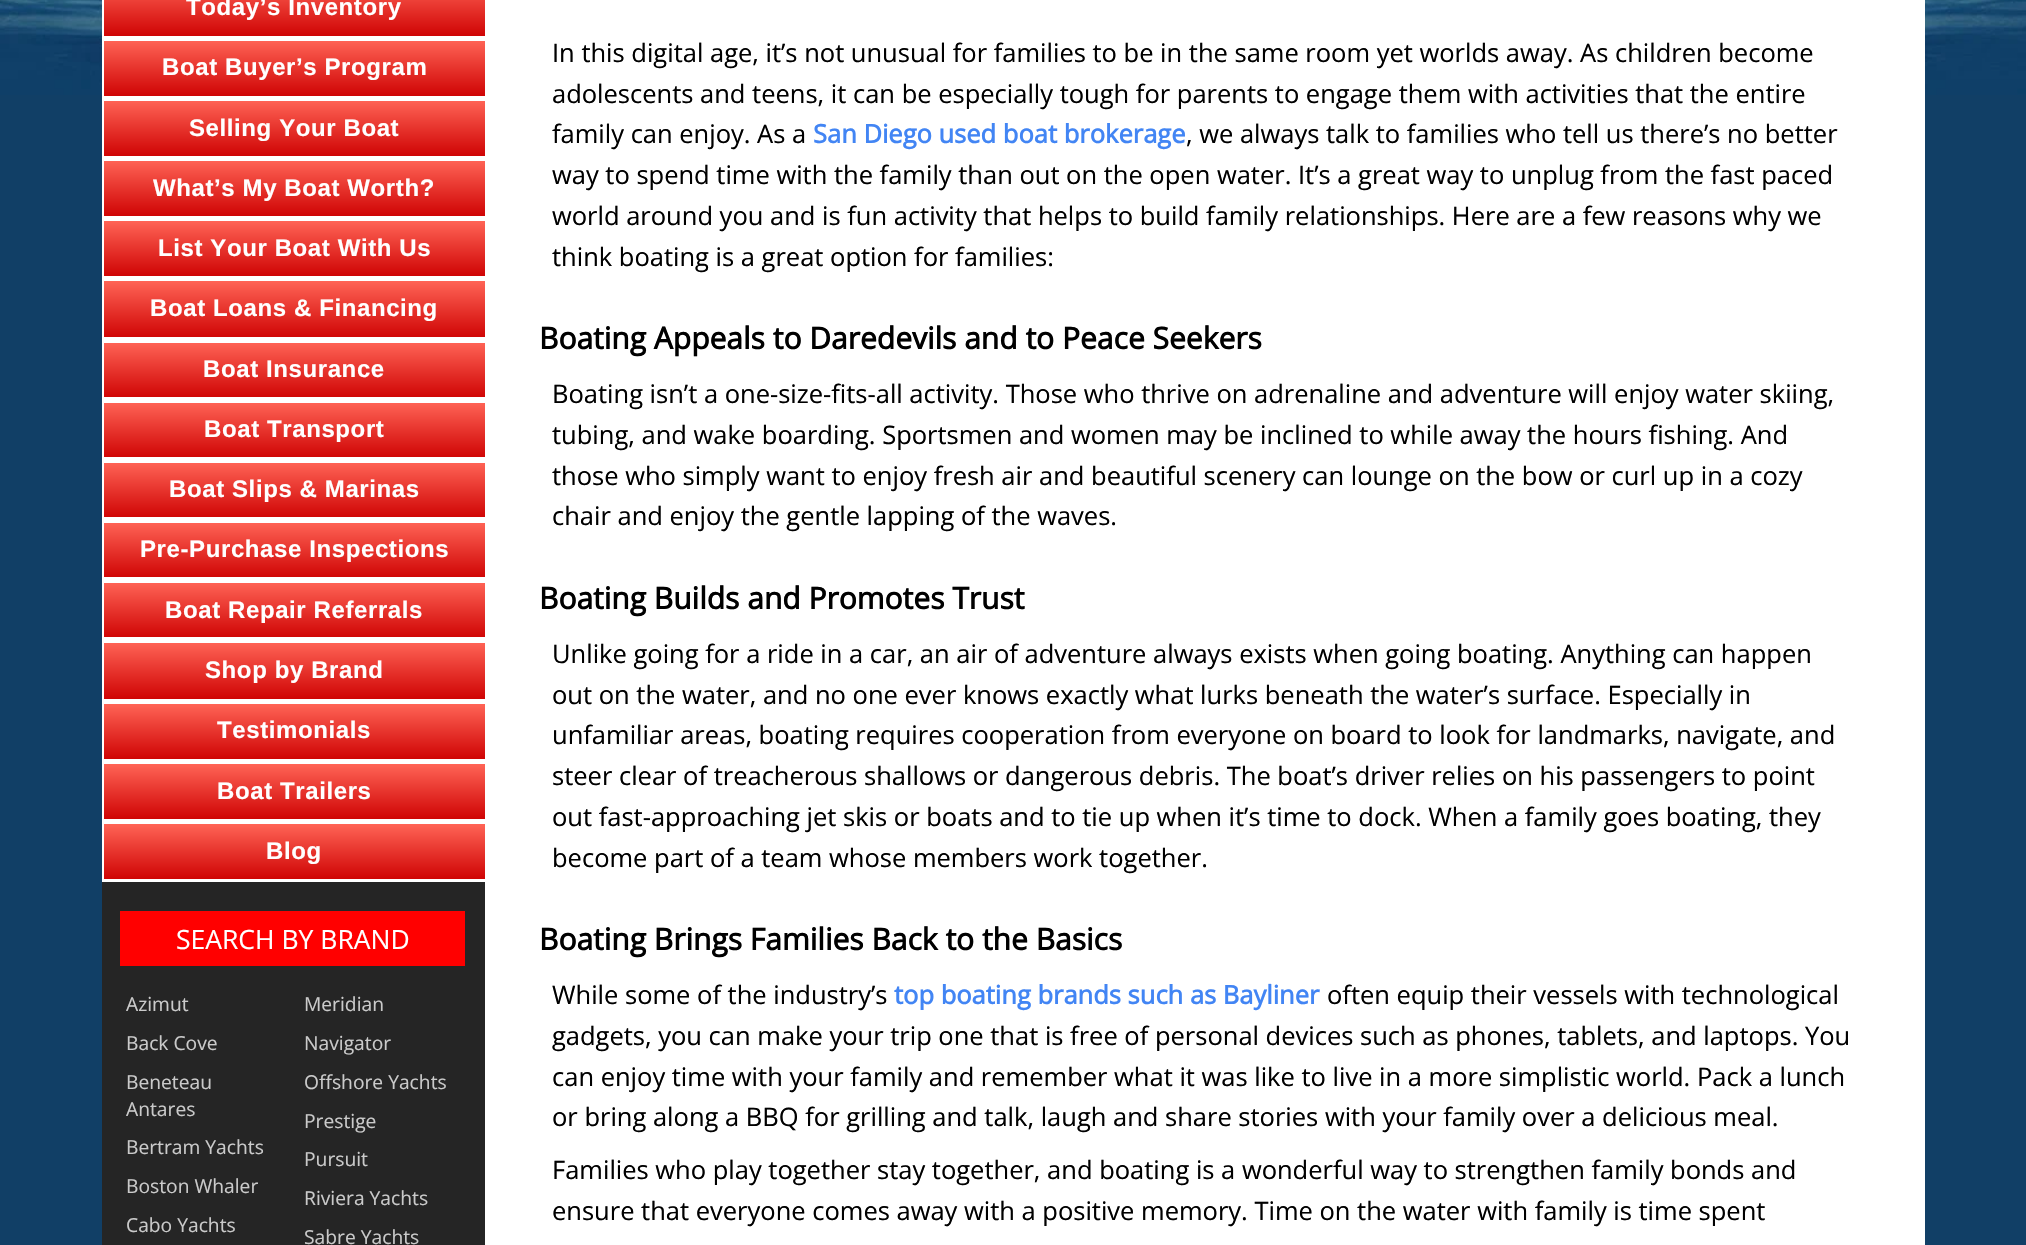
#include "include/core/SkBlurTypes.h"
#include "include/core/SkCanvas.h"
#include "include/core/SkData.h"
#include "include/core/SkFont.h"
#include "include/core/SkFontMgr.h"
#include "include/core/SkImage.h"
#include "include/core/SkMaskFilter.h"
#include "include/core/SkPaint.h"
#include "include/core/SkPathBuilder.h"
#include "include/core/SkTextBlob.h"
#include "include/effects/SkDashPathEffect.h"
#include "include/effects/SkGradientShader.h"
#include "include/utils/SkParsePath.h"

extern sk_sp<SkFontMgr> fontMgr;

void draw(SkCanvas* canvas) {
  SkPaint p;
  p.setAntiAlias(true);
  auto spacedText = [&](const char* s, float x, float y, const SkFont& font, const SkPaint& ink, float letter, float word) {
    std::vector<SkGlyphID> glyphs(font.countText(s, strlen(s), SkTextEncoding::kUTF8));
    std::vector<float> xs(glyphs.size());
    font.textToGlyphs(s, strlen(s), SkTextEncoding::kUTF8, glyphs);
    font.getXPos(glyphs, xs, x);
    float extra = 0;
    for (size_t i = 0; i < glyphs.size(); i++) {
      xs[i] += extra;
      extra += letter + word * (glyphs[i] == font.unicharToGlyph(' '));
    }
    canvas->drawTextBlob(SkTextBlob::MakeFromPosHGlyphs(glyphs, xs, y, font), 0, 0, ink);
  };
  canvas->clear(SkColorSetRGB(17, 63, 102));
  canvas->drawImageRect(SkImages::DeferredFromEncodedData(SkData::MakeFromFileName("images/1.png")), SkRect::MakeLTRB(0, 0, 2026, 95), SkSamplingOptions());
  p.setColor(SK_ColorWHITE);
  canvas->drawRect(SkRect::MakeLTRB(102, 38, 485, 39), p);
  {
    const SkColor colors[] = {SkColorSetRGB(255, 100, 86), SkColorSetRGB(207, 4, 4)};
    const float stops[] = {0, 1};
    const SkPoint ends[] = {{295, -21}, {295, 36}};
    p.setShader(SkGradientShader::MakeLinear(ends, colors, stops, 2, SkTileMode::kClamp));
    p.setAlpha(255);
  }
  canvas->drawRect(SkRect::MakeLTRB(104, 0, 485, 36), p);
  p.setStyle(SkPaint::kStroke_Style);
  p.setStrokeWidth(2);
  p.setShader(nullptr);
  p.setColor(SK_ColorWHITE);
  canvas->drawRect(SkRect::MakeLTRB(103, -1, 487, 37), p);
  p.setStyle(SkPaint::kFill_Style);
  canvas->drawRect(SkRect::MakeLTRB(102, 98, 485, 99), p);
  {
    const SkColor colors[] = {SkColorSetRGB(255, 100, 86), SkColorSetRGB(207, 4, 4)};
    const float stops[] = {0, 1};
    const SkPoint ends[] = {{295, 40}, {295, 96}};
    p.setShader(SkGradientShader::MakeLinear(ends, colors, stops, 2, SkTileMode::kClamp));
    p.setAlpha(255);
  }
  canvas->drawRect(SkRect::MakeLTRB(104, 41, 485, 96), p);
  p.setStyle(SkPaint::kStroke_Style);
  p.setShader(nullptr);
  p.setColor(SK_ColorWHITE);
  canvas->drawRect(SkRect::MakeLTRB(103, 40, 487, 97), p);
  p.setStyle(SkPaint::kFill_Style);
  canvas->drawRect(SkRect::MakeLTRB(102, 158, 485, 159), p);
  {
    const SkColor colors[] = {SkColorSetRGB(255, 100, 86), SkColorSetRGB(207, 4, 4)};
    const float stops[] = {0, 1};
    const SkPoint ends[] = {{295, 100}, {295, 156}};
    p.setShader(SkGradientShader::MakeLinear(ends, colors, stops, 2, SkTileMode::kClamp));
    p.setAlpha(255);
  }
  canvas->drawRect(SkRect::MakeLTRB(104, 101, 485, 156), p);
  p.setStyle(SkPaint::kStroke_Style);
  p.setShader(nullptr);
  p.setColor(SK_ColorWHITE);
  canvas->drawRect(SkRect::MakeLTRB(103, 100, 487, 157), p);
  p.setStyle(SkPaint::kFill_Style);
  canvas->drawRect(SkRect::MakeLTRB(102, 218, 485, 219), p);
  {
    const SkColor colors[] = {SkColorSetRGB(255, 100, 86), SkColorSetRGB(207, 4, 4)};
    const float stops[] = {0, 1};
    const SkPoint ends[] = {{295, 160}, {295, 216}};
    p.setShader(SkGradientShader::MakeLinear(ends, colors, stops, 2, SkTileMode::kClamp));
    p.setAlpha(255);
  }
  canvas->drawRect(SkRect::MakeLTRB(104, 161, 485, 216), p);
  p.setStyle(SkPaint::kStroke_Style);
  p.setShader(nullptr);
  p.setColor(SK_ColorWHITE);
  canvas->drawRect(SkRect::MakeLTRB(103, 160, 487, 217), p);
  p.setStyle(SkPaint::kFill_Style);
  canvas->drawRect(SkRect::MakeLTRB(102, 278, 485, 279), p);
  {
    const SkColor colors[] = {SkColorSetRGB(255, 100, 86), SkColorSetRGB(207, 4, 4)};
    const float stops[] = {0, 1};
    const SkPoint ends[] = {{295, 221}, {295, 276}};
    p.setShader(SkGradientShader::MakeLinear(ends, colors, stops, 2, SkTileMode::kClamp));
    p.setAlpha(255);
  }
  canvas->drawRect(SkRect::MakeLTRB(104, 221, 485, 276), p);
  p.setStyle(SkPaint::kStroke_Style);
  p.setShader(nullptr);
  p.setColor(SK_ColorWHITE);
  canvas->drawRect(SkRect::MakeLTRB(103, 220, 487, 277), p);
  p.setStyle(SkPaint::kFill_Style);
  canvas->drawRect(SkRect::MakeLTRB(102, 339, 485, 341), p);
  {
    const SkColor colors[] = {SkColorSetRGB(255, 100, 86), SkColorSetRGB(207, 4, 4)};
    const float stops[] = {0, 1};
    const SkPoint ends[] = {{295, 281}, {295, 338}};
    p.setShader(SkGradientShader::MakeLinear(ends, colors, stops, 2, SkTileMode::kClamp));
    p.setAlpha(255);
  }
  canvas->drawRect(SkRect::MakeLTRB(104, 281, 485, 337), p);
  p.setStyle(SkPaint::kStroke_Style);
  p.setShader(nullptr);
  p.setColor(SK_ColorWHITE);
  canvas->drawRect(SkRect::MakeLTRB(103, 280, 487, 338), p);
  p.setStyle(SkPaint::kFill_Style);
  canvas->drawRect(SkRect::MakeLTRB(102, 399, 485, 401), p);
  {
    const SkColor colors[] = {SkColorSetRGB(255, 100, 86), SkColorSetRGB(207, 4, 4)};
    const float stops[] = {0, 1};
    const SkPoint ends[] = {{295, 342}, {295, 398}};
    p.setShader(SkGradientShader::MakeLinear(ends, colors, stops, 2, SkTileMode::kClamp));
    p.setAlpha(255);
  }
  canvas->drawRect(SkRect::MakeLTRB(104, 343, 485, 397), p);
  p.setStyle(SkPaint::kStroke_Style);
  p.setShader(nullptr);
  p.setColor(SK_ColorWHITE);
  canvas->drawRect(SkRect::MakeLTRB(103, 342, 487, 398), p);
  p.setStyle(SkPaint::kFill_Style);
  canvas->drawRect(SkRect::MakeLTRB(102, 459, 485, 461), p);
  {
    const SkColor colors[] = {SkColorSetRGB(255, 100, 86), SkColorSetRGB(207, 4, 4)};
    const float stops[] = {0, 1};
    const SkPoint ends[] = {{295, 402}, {295, 458}};
    p.setShader(SkGradientShader::MakeLinear(ends, colors, stops, 2, SkTileMode::kClamp));
    p.setAlpha(255);
  }
  canvas->drawRect(SkRect::MakeLTRB(104, 403, 485, 457), p);
  p.setStyle(SkPaint::kStroke_Style);
  p.setShader(nullptr);
  p.setColor(SK_ColorWHITE);
  canvas->drawRect(SkRect::MakeLTRB(103, 402, 487, 458), p);
  p.setStyle(SkPaint::kFill_Style);
  canvas->drawRect(SkRect::MakeLTRB(102, 519, 485, 521), p);
  {
    const SkColor colors[] = {SkColorSetRGB(255, 100, 86), SkColorSetRGB(207, 4, 4)};
    const float stops[] = {0, 1};
    const SkPoint ends[] = {{295, 462}, {295, 518}};
    p.setShader(SkGradientShader::MakeLinear(ends, colors, stops, 2, SkTileMode::kClamp));
    p.setAlpha(255);
  }
  canvas->drawRect(SkRect::MakeLTRB(104, 463, 485, 517), p);
  p.setStyle(SkPaint::kStroke_Style);
  p.setShader(nullptr);
  p.setColor(SK_ColorWHITE);
  canvas->drawRect(SkRect::MakeLTRB(103, 462, 487, 518), p);
  p.setStyle(SkPaint::kFill_Style);
  canvas->drawRect(SkRect::MakeLTRB(102, 579, 485, 581), p);
  {
    const SkColor colors[] = {SkColorSetRGB(255, 100, 86), SkColorSetRGB(207, 4, 4)};
    const float stops[] = {0, 1};
    const SkPoint ends[] = {{295, 522}, {295, 578}};
    p.setShader(SkGradientShader::MakeLinear(ends, colors, stops, 2, SkTileMode::kClamp));
    p.setAlpha(255);
  }
  canvas->drawRect(SkRect::MakeLTRB(104, 523, 485, 577), p);
  p.setStyle(SkPaint::kStroke_Style);
  p.setShader(nullptr);
  p.setColor(SK_ColorWHITE);
  canvas->drawRect(SkRect::MakeLTRB(103, 522, 487, 578), p);
  p.setStyle(SkPaint::kFill_Style);
  canvas->drawRect(SkRect::MakeLTRB(102, 639, 485, 641), p);
  {
    const SkColor colors[] = {SkColorSetRGB(255, 100, 86), SkColorSetRGB(207, 4, 4)};
    const float stops[] = {0, 1};
    const SkPoint ends[] = {{295, 582}, {295, 638}};
    p.setShader(SkGradientShader::MakeLinear(ends, colors, stops, 2, SkTileMode::kClamp));
    p.setAlpha(255);
  }
  canvas->drawRect(SkRect::MakeLTRB(104, 583, 485, 637), p);
  p.setStyle(SkPaint::kStroke_Style);
  p.setShader(nullptr);
  p.setColor(SK_ColorWHITE);
  canvas->drawRect(SkRect::MakeLTRB(103, 582, 487, 638), p);
  p.setStyle(SkPaint::kFill_Style);
  canvas->drawRect(SkRect::MakeLTRB(102, 701, 485, 702), p);
  {
    const SkColor colors[] = {SkColorSetRGB(255, 100, 86), SkColorSetRGB(207, 4, 4)};
    const float stops[] = {0, 1};
    const SkPoint ends[] = {{295, 642}, {295, 699}};
    p.setShader(SkGradientShader::MakeLinear(ends, colors, stops, 2, SkTileMode::kClamp));
    p.setAlpha(255);
  }
  canvas->drawRect(SkRect::MakeLTRB(104, 643, 485, 699), p);
  p.setStyle(SkPaint::kStroke_Style);
  p.setShader(nullptr);
  p.setColor(SK_ColorWHITE);
  canvas->drawRect(SkRect::MakeLTRB(103, 642, 487, 700), p);
  p.setStyle(SkPaint::kFill_Style);
  canvas->drawRect(SkRect::MakeLTRB(102, 761, 485, 762), p);
  {
    const SkColor colors[] = {SkColorSetRGB(255, 100, 86), SkColorSetRGB(207, 4, 4)};
    const float stops[] = {0, 1};
    const SkPoint ends[] = {{295, 704}, {295, 759}};
    p.setShader(SkGradientShader::MakeLinear(ends, colors, stops, 2, SkTileMode::kClamp));
    p.setAlpha(255);
  }
  canvas->drawRect(SkRect::MakeLTRB(104, 704, 485, 759), p);
  p.setStyle(SkPaint::kStroke_Style);
  p.setShader(nullptr);
  p.setColor(SK_ColorWHITE);
  canvas->drawRect(SkRect::MakeLTRB(103, 703, 487, 760), p);
  p.setStyle(SkPaint::kFill_Style);
  canvas->drawRect(SkRect::MakeLTRB(102, 821, 485, 822), p);
  {
    const SkColor colors[] = {SkColorSetRGB(255, 100, 86), SkColorSetRGB(207, 4, 4)};
    const float stops[] = {0, 1};
    const SkPoint ends[] = {{295, 764}, {295, 819}};
    p.setShader(SkGradientShader::MakeLinear(ends, colors, stops, 2, SkTileMode::kClamp));
    p.setAlpha(255);
  }
  canvas->drawRect(SkRect::MakeLTRB(104, 764, 485, 819), p);
  p.setStyle(SkPaint::kStroke_Style);
  p.setShader(nullptr);
  p.setColor(SK_ColorWHITE);
  canvas->drawRect(SkRect::MakeLTRB(103, 763, 487, 820), p);
  p.setStyle(SkPaint::kFill_Style);
  canvas->drawRect(SkRect::MakeLTRB(102, 881, 485, 882), p);
  {
    const SkColor colors[] = {SkColorSetRGB(255, 100, 86), SkColorSetRGB(207, 4, 4)};
    const float stops[] = {0, 1};
    const SkPoint ends[] = {{295, 824}, {295, 879}};
    p.setShader(SkGradientShader::MakeLinear(ends, colors, stops, 2, SkTileMode::kClamp));
    p.setAlpha(255);
  }
  canvas->drawRect(SkRect::MakeLTRB(104, 824, 485, 879), p);
  p.setStyle(SkPaint::kStroke_Style);
  p.setShader(nullptr);
  p.setColor(SK_ColorWHITE);
  canvas->drawRect(SkRect::MakeLTRB(103, 823, 487, 880), p);
  p.setStyle(SkPaint::kFill_Style);
  canvas->drawRect(SkRect::MakeLTRB(485, 0, 1925, 1245), p);
  p.setColor(SkColorSetRGB(37, 37, 37));
  canvas->drawRect(SkRect::MakeLTRB(102, 882, 485, 1245), p);
  p.setColor(SkColorSetRGB(255, 0, 0));
  canvas->drawRect(SkRect::MakeLTRB(120, 911, 465, 966), p);
  SkFont font1(fontMgr->matchFamilyStyle("Liberation Sans", SkFontStyle::Bold()), 24);
  font1.setSubpixel(true);
  p.setColor(SK_ColorWHITE);
  spacedText("Today’s Inventory", 186, 15, font1, p, 0.6f, 0);
  spacedText("Boat Buyer’s Program", 162, 75, font1, p, 0.6f, 0);
  spacedText("Selling Your Boat", 189, 136, font1, p, 0.6f, 0);
  spacedText("What’s My Boat Worth?", 153, 196, font1, p, 0.6f, 0);
  spacedText("List Your Boat With Us", 158, 256, font1, p, 0.6f, 0);
  spacedText("Boat Loans & Financing", 150, 316, font1, p, 0.6f, 0);
  spacedText("Boat Insurance", 203, 377, font1, p, 0.6f, 0);
  spacedText("Boat Transport", 204, 437, font1, p, 0.6f, 0);
  spacedText("Boat Slips & Marinas", 169, 497, font1, p, 0.6f, 0);
  spacedText("Pre-Purchase Inspections", 140, 557, font1, p, 0.6f, 0);
  spacedText("Boat Repair Referrals", 165, 618, font1, p, 0.6f, 0);
  spacedText("Shop by Brand", 205, 678, font1, p, 0.6f, 0);
  spacedText("Testimonials", 217, 738, font1, p, 0.6f, 0);
  spacedText("Boat Trailers", 217, 799, font1, p, 0.6f, 0);
  spacedText("Blog", 266, 859, font1, p, 0.6f, 0);
  SkFont font2(fontMgr->matchFamilyStyle("Open Sans", SkFontStyle::Normal()), 25.5f);
  font2.setSubpixel(true);
  p.setColor(SK_ColorBLACK);
  canvas->drawString("In this digital age, it’s not unusual for families to be in the same room yet worlds away. As children become", 552, 62, font2, p);
  canvas->drawString("adolescents and teens, it can be especially tough for parents to engage them with activities that the entire", 552, 103, font2, p);
  canvas->drawString("family can enjoy. As a", 552, 143, font2, p);
  SkFont font3(fontMgr->matchFamilyStyle("Open Sans", SkFontStyle::Bold()), 25.5f);
  font3.setSubpixel(true);
  p.setColor(SkColorSetRGB(66, 133, 244));
  canvas->drawString("San Diego used boat brokerage", 813, 143, font3, p);
  p.setColor(SK_ColorBLACK);
  canvas->drawString(", we always talk to families who tell us there’s no better", 1186, 143, font2, p);
  canvas->drawString("way to spend time with the family than out on the open water. It’s a great way to unplug from the fast paced", 552, 184, font2, p);
  canvas->drawString("world around you and is fun activity that helps to build family relationships. Here are a few reasons why we", 552, 225, font2, p);
  canvas->drawString("think boating is a great option for families:", 552, 266, font2, p);
  SkFont font4(fontMgr->matchFamilyStyle("Open Sans", SkFontStyle::Bold()), 30);
  font4.setSubpixel(true);
  canvas->drawString("Boating Appeals to Daredevils and to Peace Seekers", 539, 349, font4, p);
  canvas->drawString("Boating isn’t a one-size-fits-all activity. Those who thrive on adrenaline and adventure will enjoy water skiing,", 552, 403, font2, p);
  canvas->drawString("tubing, and wake boarding. Sportsmen and women may be inclined to while away the hours fishing. And", 552, 444, font2, p);
  canvas->drawString("those who simply want to enjoy fresh air and beautiful scenery can lounge on the bow or curl up in a cozy", 552, 485, font2, p);
  canvas->drawString("chair and enjoy the gentle lapping of the waves.", 552, 525, font2, p);
  canvas->drawString("Boating Builds and Promotes Trust", 539, 609, font4, p);
  canvas->drawString("Unlike going for a ride in a car, an air of adventure always exists when going boating. Anything can happen", 552, 663, font2, p);
  canvas->drawString("out on the water, and no one ever knows exactly what lurks beneath the water’s surface. Especially in", 552, 704, font2, p);
  canvas->drawString("unfamiliar areas, boating requires cooperation from everyone on board to look for landmarks, navigate, and", 552, 744, font2, p);
  canvas->drawString("steer clear of treacherous shallows or dangerous debris. The boat’s driver relies on his passengers to point", 552, 785, font2, p);
  canvas->drawString("out fast-approaching jet skis or boats and to tie up when it’s time to dock. When a family goes boating, they", 552, 826, font2, p);
  canvas->drawString("become part of a team whose members work together.", 552, 867, font2, p);
  canvas->drawString("Boating Brings Families Back to the Basics", 539, 950, font4, p);
  canvas->drawString("While some of the industry’s", 552, 1004, font2, p);
  p.setColor(SkColorSetRGB(66, 133, 244));
  canvas->drawString("top boating brands such as Bayliner", 894, 1004, font3, p);
  p.setColor(SK_ColorBLACK);
  canvas->drawString("often equip their vessels with technological", 1327, 1004, font2, p);
  canvas->drawString("gadgets, you can make your trip one that is free of personal devices such as phones, tablets, and laptops. You", 552, 1045, font2, p);
  canvas->drawString("can enjoy time with your family and remember what it was like to live in a more simplistic world. Pack a lunch", 552, 1086, font2, p);
  canvas->drawString("or bring along a BBQ for grilling and talk, laugh and share stories with your family over a delicious meal.", 552, 1126, font2, p);
  canvas->drawString("Families who play together stay together, and boating is a wonderful way to strengthen family bonds and", 552, 1179, font2, p);
  canvas->drawString("ensure that everyone comes away with a positive memory. Time on the water with family is time spent", 552, 1220, font2, p);
  SkFont font5(fontMgr->matchFamilyStyle("Open Sans", SkFontStyle::Normal()), 26.5f);
  font5.setSubpixel(true);
  p.setColor(SK_ColorWHITE);
  canvas->drawString("SEARCH BY BRAND", 176, 949, font5, p);
  SkFont font6(fontMgr->matchFamilyStyle("Open Sans", SkFontStyle::Normal()), 19.25f);
  font6.setSubpixel(true);
  p.setColor(SkColorSetRGB(202, 202, 202));
  canvas->drawString("Azimut", 126, 1011, font6, p);
  canvas->drawString("Back Cove", 126, 1050, font6, p);
  canvas->drawString("Beneteau", 126, 1089, font6, p);
  canvas->drawString("Antares", 126, 1116, font6, p);
  canvas->drawString("Bertram Yachts", 126, 1154, font6, p);
  canvas->drawString("Boston Whaler", 126, 1193, font6, p);
  canvas->drawString("Cabo Yachts", 126, 1232, font6, p);
  canvas->drawString("Meridian", 304, 1011, font6, p);
  canvas->drawString("Navigator", 304, 1050, font6, p);
  canvas->drawString("Offshore Yachts", 304, 1089, font6, p);
  canvas->drawString("Prestige", 304, 1128, font6, p);
  canvas->drawString("Pursuit", 304, 1166, font6, p);
  canvas->drawString("Riviera Yachts", 304, 1205, font6, p);
  canvas->drawString("Sabre Yachts", 304, 1244, font6, p);
}
